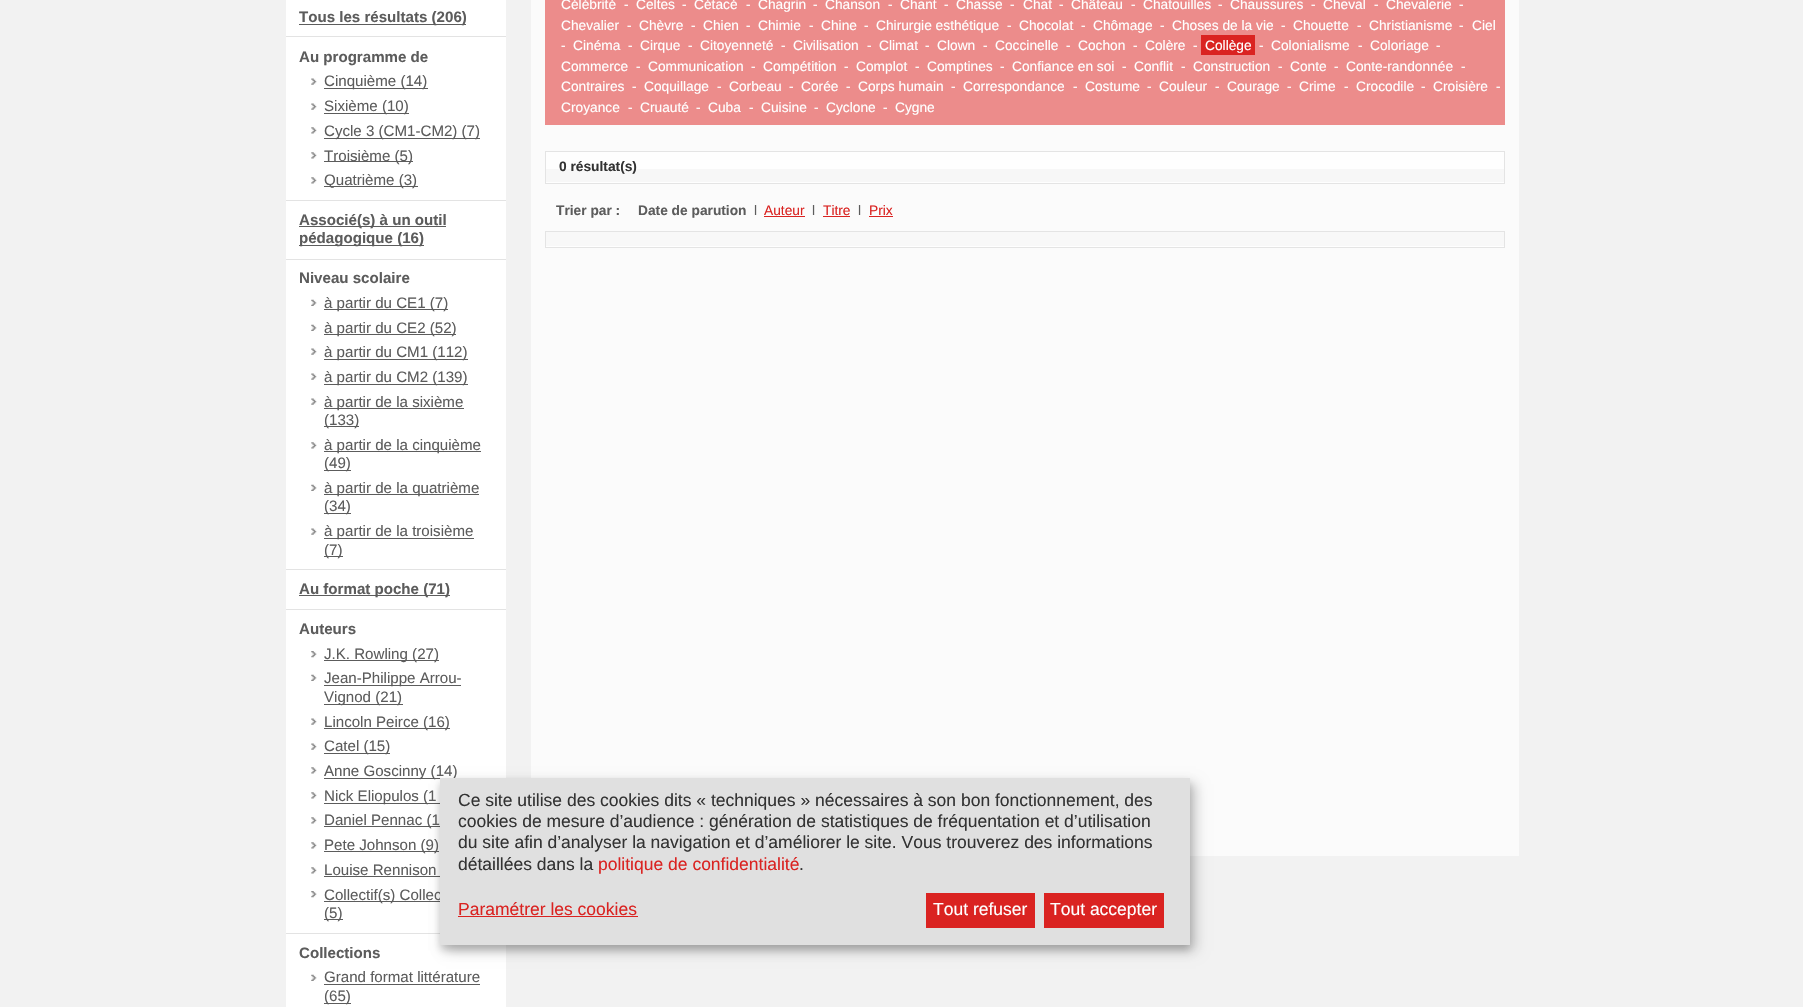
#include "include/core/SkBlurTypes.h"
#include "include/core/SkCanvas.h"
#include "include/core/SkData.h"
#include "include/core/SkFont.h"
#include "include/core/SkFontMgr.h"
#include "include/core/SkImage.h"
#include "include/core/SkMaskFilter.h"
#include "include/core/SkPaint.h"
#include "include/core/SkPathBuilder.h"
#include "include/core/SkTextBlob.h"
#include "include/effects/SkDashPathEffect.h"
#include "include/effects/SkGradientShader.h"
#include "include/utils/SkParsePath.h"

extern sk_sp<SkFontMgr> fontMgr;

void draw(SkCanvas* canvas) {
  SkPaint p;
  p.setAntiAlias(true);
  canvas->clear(SkColorSetRGB(242, 242, 242));
  p.setColor(SK_ColorWHITE);
  canvas->drawRect(SkRect::MakeLTRB(286, 0, 506, 1007), p);
  p.setColor(SkColorSetRGB(92, 92, 92));
  canvas->drawRect(SkRect::MakeLTRB(299, 24, 466, 25), p);
  p.setColor(SkColorSetRGB(227, 227, 227));
  canvas->drawRect(SkRect::MakeLTRB(286, 36, 506, 37), p);
  canvas->drawImageRect(SkImages::DeferredFromEncodedData(SkData::MakeFromFileName("images/1.png")), SkRect::MakeLTRB(311, 78, 317, 85), SkSamplingOptions());
  p.setColor(SkColorSetRGB(92, 92, 92));
  canvas->drawRect(SkRect::MakeLTRB(324, 88, 428, 89), p);
  canvas->drawImageRect(SkImages::DeferredFromEncodedData(SkData::MakeFromFileName("images/1.png")), SkRect::MakeLTRB(311, 103, 317, 110), SkSamplingOptions());
  canvas->drawRect(SkRect::MakeLTRB(324, 113, 409, 114), p);
  canvas->drawImageRect(SkImages::DeferredFromEncodedData(SkData::MakeFromFileName("images/2.png")), SkRect::MakeLTRB(311, 127, 317, 134), SkSamplingOptions());
  canvas->drawRect(SkRect::MakeLTRB(324, 138, 480, 139), p);
  canvas->drawImageRect(SkImages::DeferredFromEncodedData(SkData::MakeFromFileName("images/2.png")), SkRect::MakeLTRB(311, 152, 317, 159), SkSamplingOptions());
  canvas->drawRect(SkRect::MakeLTRB(324, 161, 413, 162), p);
  canvas->drawImageRect(SkImages::DeferredFromEncodedData(SkData::MakeFromFileName("images/2.png")), SkRect::MakeLTRB(311, 177, 317, 184), SkSamplingOptions());
  canvas->drawRect(SkRect::MakeLTRB(324, 186, 418, 187), p);
  p.setColor(SkColorSetRGB(227, 227, 227));
  canvas->drawRect(SkRect::MakeLTRB(286, 200, 506, 201), p);
  p.setColor(SkColorSetRGB(92, 92, 92));
  canvas->drawRect(SkRect::MakeLTRB(299, 226, 446, 227), p);
  canvas->drawRect(SkRect::MakeLTRB(299, 245, 424, 246), p);
  p.setColor(SkColorSetRGB(227, 227, 227));
  canvas->drawRect(SkRect::MakeLTRB(286, 259, 506, 260), p);
  canvas->drawImageRect(SkImages::DeferredFromEncodedData(SkData::MakeFromFileName("images/3.png")), SkRect::MakeLTRB(311, 299, 317, 306), SkSamplingOptions());
  p.setColor(SkColorSetRGB(92, 92, 92));
  canvas->drawRect(SkRect::MakeLTRB(324, 309, 448, 310), p);
  canvas->drawImageRect(SkImages::DeferredFromEncodedData(SkData::MakeFromFileName("images/3.png")), SkRect::MakeLTRB(311, 324, 317, 331), SkSamplingOptions());
  canvas->drawRect(SkRect::MakeLTRB(324, 334, 456, 335), p);
  canvas->drawImageRect(SkImages::DeferredFromEncodedData(SkData::MakeFromFileName("images/1.png")), SkRect::MakeLTRB(311, 348, 317, 355), SkSamplingOptions());
  canvas->drawRect(SkRect::MakeLTRB(324, 359, 468, 360), p);
  canvas->drawImageRect(SkImages::DeferredFromEncodedData(SkData::MakeFromFileName("images/1.png")), SkRect::MakeLTRB(311, 373, 317, 380), SkSamplingOptions());
  canvas->drawRect(SkRect::MakeLTRB(324, 384, 468, 385), p);
  canvas->drawImageRect(SkImages::DeferredFromEncodedData(SkData::MakeFromFileName("images/1.png")), SkRect::MakeLTRB(311, 398, 317, 405), SkSamplingOptions());
  canvas->drawRect(SkRect::MakeLTRB(324, 408, 464, 409), p);
  canvas->drawRect(SkRect::MakeLTRB(324, 426, 359, 427), p);
  canvas->drawImageRect(SkImages::DeferredFromEncodedData(SkData::MakeFromFileName("images/2.png")), SkRect::MakeLTRB(311, 442, 317, 449), SkSamplingOptions());
  canvas->drawRect(SkRect::MakeLTRB(324, 451, 481, 452), p);
  canvas->drawRect(SkRect::MakeLTRB(324, 470, 351, 471), p);
  canvas->drawImageRect(SkImages::DeferredFromEncodedData(SkData::MakeFromFileName("images/4.png")), SkRect::MakeLTRB(311, 484, 317, 491), SkSamplingOptions());
  canvas->drawRect(SkRect::MakeLTRB(324, 494, 479, 495), p);
  canvas->drawRect(SkRect::MakeLTRB(324, 513, 351, 514), p);
  canvas->drawImageRect(SkImages::DeferredFromEncodedData(SkData::MakeFromFileName("images/1.png")), SkRect::MakeLTRB(311, 528, 317, 535), SkSamplingOptions());
  canvas->drawRect(SkRect::MakeLTRB(324, 538, 474, 539), p);
  canvas->drawRect(SkRect::MakeLTRB(324, 556, 343, 557), p);
  p.setColor(SkColorSetRGB(227, 227, 227));
  canvas->drawRect(SkRect::MakeLTRB(286, 569, 506, 570), p);
  p.setColor(SkColorSetRGB(92, 92, 92));
  canvas->drawRect(SkRect::MakeLTRB(299, 595, 450, 596), p);
  p.setColor(SkColorSetRGB(227, 227, 227));
  canvas->drawRect(SkRect::MakeLTRB(286, 609, 506, 610), p);
  canvas->drawImageRect(SkImages::DeferredFromEncodedData(SkData::MakeFromFileName("images/5.png")), SkRect::MakeLTRB(311, 651, 317, 658), SkSamplingOptions());
  p.setColor(SkColorSetRGB(92, 92, 92));
  canvas->drawRect(SkRect::MakeLTRB(324, 660, 439, 661), p);
  canvas->drawImageRect(SkImages::DeferredFromEncodedData(SkData::MakeFromFileName("images/3.png")), SkRect::MakeLTRB(311, 674, 317, 681), SkSamplingOptions());
  canvas->drawRect(SkRect::MakeLTRB(324, 685, 461, 686), p);
  canvas->drawRect(SkRect::MakeLTRB(324, 704, 403, 705), p);
  canvas->drawImageRect(SkImages::DeferredFromEncodedData(SkData::MakeFromFileName("images/1.png")), SkRect::MakeLTRB(311, 718, 317, 725), SkSamplingOptions());
  canvas->drawRect(SkRect::MakeLTRB(324, 728, 450, 729), p);
  canvas->drawImageRect(SkImages::DeferredFromEncodedData(SkData::MakeFromFileName("images/1.png")), SkRect::MakeLTRB(311, 743, 317, 750), SkSamplingOptions());
  canvas->drawRect(SkRect::MakeLTRB(324, 753, 390, 754), p);
  canvas->drawImageRect(SkImages::DeferredFromEncodedData(SkData::MakeFromFileName("images/2.png")), SkRect::MakeLTRB(311, 767, 317, 774), SkSamplingOptions());
  canvas->drawRect(SkRect::MakeLTRB(324, 778, 440, 779), p);
  canvas->drawImageRect(SkImages::DeferredFromEncodedData(SkData::MakeFromFileName("images/2.png")), SkRect::MakeLTRB(311, 792, 317, 799), SkSamplingOptions());
  canvas->drawRect(SkRect::MakeLTRB(324, 803, 440, 804), p);
  canvas->drawImageRect(SkImages::DeferredFromEncodedData(SkData::MakeFromFileName("images/2.png")), SkRect::MakeLTRB(311, 817, 317, 824), SkSamplingOptions());
  canvas->drawRect(SkRect::MakeLTRB(324, 826, 440, 827), p);
  canvas->drawImageRect(SkImages::DeferredFromEncodedData(SkData::MakeFromFileName("images/2.png")), SkRect::MakeLTRB(311, 842, 317, 849), SkSamplingOptions());
  canvas->drawRect(SkRect::MakeLTRB(324, 851, 439, 852), p);
  canvas->drawImageRect(SkImages::DeferredFromEncodedData(SkData::MakeFromFileName("images/2.png")), SkRect::MakeLTRB(311, 867, 317, 874), SkSamplingOptions());
  canvas->drawRect(SkRect::MakeLTRB(324, 876, 440, 877), p);
  canvas->drawImageRect(SkImages::DeferredFromEncodedData(SkData::MakeFromFileName("images/5.png")), SkRect::MakeLTRB(311, 891, 317, 898), SkSamplingOptions());
  canvas->drawRect(SkRect::MakeLTRB(324, 901, 440, 902), p);
  canvas->drawRect(SkRect::MakeLTRB(324, 919, 343, 920), p);
  p.setColor(SkColorSetRGB(227, 227, 227));
  canvas->drawRect(SkRect::MakeLTRB(286, 933, 440, 934), p);
  canvas->drawImageRect(SkImages::DeferredFromEncodedData(SkData::MakeFromFileName("images/3.png")), SkRect::MakeLTRB(311, 974, 317, 981), SkSamplingOptions());
  p.setColor(SkColorSetRGB(92, 92, 92));
  canvas->drawRect(SkRect::MakeLTRB(324, 984, 480, 985), p);
  canvas->drawRect(SkRect::MakeLTRB(324, 1003, 351, 1004), p);
  p.setColor(SkColorSetRGB(251, 251, 251));
  canvas->drawRect(SkRect::MakeLTRB(531, 0, 1519, 856), p);
  p.setColor(SkColorSetRGB(236, 140, 139));
  canvas->drawRect(SkRect::MakeLTRB(545, 0, 1505, 125), p);
  p.setColor(SkColorSetRGB(218, 35, 33));
  canvas->drawRect(SkRect::MakeLTRB(1201, 35, 1255, 55), p);
  p.setColor(SkColorSetRGB(254, 254, 254));
  canvas->drawRect(SkRect::MakeLTRB(546, 152, 1504, 183), p);
  p.setColor(SkColorSetRGB(247, 247, 247));
  canvas->drawRect(SkRect::MakeLTRB(546, 169, 1504, 182), p);
  p.setStyle(SkPaint::kStroke_Style);
  p.setStrokeWidth(1);
  p.setColor(SkColorSetRGB(228, 228, 228));
  canvas->drawRect(SkRect::MakeLTRB(545.5f, 151.5f, 1504.5f, 183.5f), p);
  p.setStyle(SkPaint::kFill_Style);
  p.setColor(SkColorSetRGB(218, 35, 33));
  canvas->drawRect(SkRect::MakeLTRB(764, 216, 805, 217), p);
  canvas->drawRect(SkRect::MakeLTRB(823, 216, 850, 217), p);
  canvas->drawRect(SkRect::MakeLTRB(869, 216, 893, 217), p);
  p.setColor(SkColorSetRGB(254, 254, 254));
  canvas->drawRect(SkRect::MakeLTRB(546, 246, 1504, 247), p);
  p.setColor(SkColorSetRGB(248, 248, 248));
  canvas->drawRect(SkRect::MakeLTRB(546, 232, 1504, 246), p);
  p.setStyle(SkPaint::kStroke_Style);
  p.setColor(SkColorSetRGB(228, 228, 228));
  canvas->drawRect(SkRect::MakeLTRB(545.5f, 231.5f, 1504.5f, 247.5f), p);
  p.setStyle(SkPaint::kFill_Style);
  p.setColor(SkColorSetARGB(48, 0, 0, 0));
  p.setMaskFilter(SkMaskFilter::MakeBlur(kNormal_SkBlurStyle, 6));
  canvas->drawRect(SkRect::MakeLTRB(446, 784, 1196, 951), p);
  p.setMaskFilter(nullptr);
  p.setColor(SkColorSetARGB(51, 0, 0, 0));
  p.setMaskFilter(SkMaskFilter::MakeBlur(kNormal_SkBlurStyle, 4));
  canvas->drawRect(SkRect::MakeLTRB(440, 783, 1190, 950), p);
  p.setMaskFilter(nullptr);
  SkFont font1(fontMgr->matchFamilyStyle("Liberation Sans", SkFontStyle::Bold()), 15.1f);
  font1.setSubpixel(true);
  p.setColor(SkColorSetRGB(92, 92, 92));
  canvas->drawString("Tous les résultats (206)", 299, 22, font1, p);
  canvas->drawString("Au programme de", 299, 62, font1, p);
  SkFont font2(fontMgr->matchFamilyStyle("Liberation Sans", SkFontStyle::Normal()), 15.1f);
  font2.setSubpixel(true);
  canvas->drawString("Cinquième (14)", 324, 86, font2, p);
  canvas->drawString("Sixième (10)", 324, 111, font2, p);
  canvas->drawString("Cycle 3 (CM1-CM2) (7)", 324, 136, font2, p);
  canvas->drawString("Troisième (5)", 324, 161, font2, p);
  canvas->drawString("Quatrième (3)", 324, 185, font2, p);
  canvas->drawString("Associé(s) à un outil", 299, 225, font1, p);
  canvas->drawString("pédagogique (16)", 299, 243, font1, p);
  canvas->drawString("Niveau scolaire", 299, 283, font1, p);
  canvas->drawString("à partir du CE1 (7)", 324, 308, font2, p);
  canvas->drawString("à partir du CE2 (52)", 324, 333, font2, p);
  canvas->drawString("à partir du CM1 (112)", 324, 357, font2, p);
  canvas->drawString("à partir du CM2 (139)", 324, 382, font2, p);
  canvas->drawString("à partir de la sixième", 324, 407, font2, p);
  canvas->drawString("(133)", 324, 425, font2, p);
  canvas->drawString("à partir de la cinquième", 324, 450, font2, p);
  canvas->drawString("(49)", 324, 468, font2, p);
  canvas->drawString("à partir de la quatrième", 324, 493, font2, p);
  canvas->drawString("(34)", 324, 511, font2, p);
  canvas->drawString("à partir de la troisième", 324, 536, font2, p);
  canvas->drawString("(7)", 324, 555, font2, p);
  canvas->drawString("Au format poche (71)", 299, 594, font1, p);
  canvas->drawString("Auteurs", 299, 634, font1, p);
  canvas->drawString("J.K. Rowling (27)", 324, 659, font2, p);
  canvas->drawString("Jean-Philippe Arrou-", 324, 683, font2, p);
  canvas->drawString("Vignod (21)", 324, 702, font2, p);
  canvas->drawString("Lincoln Peirce (16)", 324, 727, font2, p);
  canvas->drawString("Catel (15)", 324, 751, font2, p);
  canvas->drawString("Anne Goscinny (14)", 324, 776, font2, p);
  canvas->drawString("Nick Eliopulos (1", 324, 801, font2, p);
  canvas->drawString("Daniel Pennac (1", 324, 825, font2, p);
  canvas->drawString("Pete Johnson (9)", 324, 850, font2, p);
  canvas->drawString("Louise Rennison", 324, 875, font2, p);
  canvas->drawString("Collectif(s) Collec", 324, 900, font2, p);
  canvas->drawString("(5)", 324, 918, font2, p);
  canvas->drawString("Collections", 299, 958, font1, p);
  canvas->drawString("Grand format littérature", 324, 982, font2, p);
  canvas->drawString("(65)", 324, 1001, font2, p);
  SkFont font3(fontMgr->matchFamilyStyle("Liberation Sans", SkFontStyle::Normal()), 13.75f);
  font3.setSubpixel(true);
  p.setColor(SK_ColorWHITE);
  canvas->drawString("Célébrité", 561, 9, font3, p);
  canvas->drawString("-", 624, 9, font3, p);
  canvas->drawString("Celtes", 636, 9, font3, p);
  canvas->drawString("-", 682, 9, font3, p);
  canvas->drawString("Cétacé", 694, 9, font3, p);
  canvas->drawString("-", 746, 9, font3, p);
  canvas->drawString("Chagrin", 758, 9, font3, p);
  canvas->drawString("-", 813, 9, font3, p);
  canvas->drawString("Chanson", 825, 9, font3, p);
  canvas->drawString("-", 888, 9, font3, p);
  canvas->drawString("Chant", 900, 9, font3, p);
  canvas->drawString("-", 944, 9, font3, p);
  canvas->drawString("Chasse", 956, 9, font3, p);
  canvas->drawString("-", 1010, 9, font3, p);
  canvas->drawString("Chat", 1023, 9, font3, p);
  canvas->drawString("-", 1059, 9, font3, p);
  canvas->drawString("Château", 1071, 9, font3, p);
  canvas->drawString("-", 1131, 9, font3, p);
  canvas->drawString("Chatouilles", 1143, 9, font3, p);
  canvas->drawString("-", 1218, 9, font3, p);
  canvas->drawString("Chaussures", 1230, 9, font3, p);
  canvas->drawString("-", 1311, 9, font3, p);
  canvas->drawString("Cheval", 1323, 9, font3, p);
  canvas->drawString("-", 1374, 9, font3, p);
  canvas->drawString("Chevalerie", 1386, 9, font3, p);
  canvas->drawString("-", 1459, 9, font3, p);
  canvas->drawString("Chevalier", 561, 30, font3, p);
  canvas->drawString("-", 627, 30, font3, p);
  canvas->drawString("Chèvre", 639, 30, font3, p);
  canvas->drawString("-", 691, 30, font3, p);
  canvas->drawString("Chien", 703, 30, font3, p);
  canvas->drawString("-", 746, 30, font3, p);
  canvas->drawString("Chimie", 758, 30, font3, p);
  canvas->drawString("-", 809, 30, font3, p);
  canvas->drawString("Chine", 821, 30, font3, p);
  canvas->drawString("-", 864, 30, font3, p);
  canvas->drawString("Chirurgie esthétique", 876, 30, font3, p);
  canvas->drawString("-", 1007, 30, font3, p);
  canvas->drawString("Chocolat", 1019, 30, font3, p);
  canvas->drawString("-", 1081, 30, font3, p);
  canvas->drawString("Chômage", 1093, 30, font3, p);
  canvas->drawString("-", 1160, 30, font3, p);
  canvas->drawString("Choses de la vie", 1172, 30, font3, p);
  canvas->drawString("-", 1281, 30, font3, p);
  canvas->drawString("Chouette", 1293, 30, font3, p);
  canvas->drawString("-", 1357, 30, font3, p);
  canvas->drawString("Christianisme", 1369, 30, font3, p);
  canvas->drawString("-", 1459, 30, font3, p);
  canvas->drawString("Ciel", 1472, 30, font3, p);
  canvas->drawString("-", 561, 50, font3, p);
  canvas->drawString("Cinéma", 573, 50, font3, p);
  canvas->drawString("-", 628, 50, font3, p);
  canvas->drawString("Cirque", 640, 50, font3, p);
  canvas->drawString("-", 688, 50, font3, p);
  canvas->drawString("Citoyenneté", 700, 50, font3, p);
  canvas->drawString("-", 781, 50, font3, p);
  canvas->drawString("Civilisation", 793, 50, font3, p);
  canvas->drawString("-", 867, 50, font3, p);
  canvas->drawString("Climat", 879, 50, font3, p);
  canvas->drawString("-", 925, 50, font3, p);
  canvas->drawString("Clown", 937, 50, font3, p);
  canvas->drawString("-", 983, 50, font3, p);
  canvas->drawString("Coccinelle", 995, 50, font3, p);
  canvas->drawString("-", 1066, 50, font3, p);
  canvas->drawString("Cochon", 1078, 50, font3, p);
  canvas->drawString("-", 1133, 50, font3, p);
  canvas->drawString("Colère", 1145, 50, font3, p);
  canvas->drawString("-", 1193, 50, font3, p);
  canvas->drawString("Collège", 1205, 50, font3, p);
  canvas->drawString("-", 1259, 50, font3, p);
  canvas->drawString("Colonialisme", 1271, 50, font3, p);
  canvas->drawString("-", 1358, 50, font3, p);
  canvas->drawString("Coloriage", 1370, 50, font3, p);
  canvas->drawString("-", 1436, 50, font3, p);
  canvas->drawString("Commerce", 561, 71, font3, p);
  canvas->drawString("-", 636, 71, font3, p);
  canvas->drawString("Communication", 648, 71, font3, p);
  canvas->drawString("-", 751, 71, font3, p);
  canvas->drawString("Compétition", 763, 71, font3, p);
  canvas->drawString("-", 844, 71, font3, p);
  canvas->drawString("Complot", 856, 71, font3, p);
  canvas->drawString("-", 915, 71, font3, p);
  canvas->drawString("Comptines", 927, 71, font3, p);
  canvas->drawString("-", 1000, 71, font3, p);
  canvas->drawString("Confiance en soi", 1012, 71, font3, p);
  canvas->drawString("-", 1122, 71, font3, p);
  canvas->drawString("Conflit", 1134, 71, font3, p);
  canvas->drawString("-", 1181, 71, font3, p);
  canvas->drawString("Construction", 1193, 71, font3, p);
  canvas->drawString("-", 1278, 71, font3, p);
  canvas->drawString("Conte", 1290, 71, font3, p);
  canvas->drawString("-", 1334, 71, font3, p);
  canvas->drawString("Conte-randonnée", 1346, 71, font3, p);
  canvas->drawString("-", 1461, 71, font3, p);
  canvas->drawString("Contraires", 561, 91, font3, p);
  canvas->drawString("-", 632, 91, font3, p);
  canvas->drawString("Coquillage", 644, 91, font3, p);
  canvas->drawString("-", 717, 91, font3, p);
  canvas->drawString("Corbeau", 729, 91, font3, p);
  canvas->drawString("-", 789, 91, font3, p);
  canvas->drawString("Corée", 801, 91, font3, p);
  canvas->drawString("-", 846, 91, font3, p);
  canvas->drawString("Corps humain", 858, 91, font3, p);
  canvas->drawString("-", 951, 91, font3, p);
  canvas->drawString("Correspondance", 963, 91, font3, p);
  canvas->drawString("-", 1073, 91, font3, p);
  canvas->drawString("Costume", 1085, 91, font3, p);
  canvas->drawString("-", 1147, 91, font3, p);
  canvas->drawString("Couleur", 1159, 91, font3, p);
  canvas->drawString("-", 1215, 91, font3, p);
  canvas->drawString("Courage", 1227, 91, font3, p);
  canvas->drawString("-", 1287, 91, font3, p);
  canvas->drawString("Crime", 1299, 91, font3, p);
  canvas->drawString("-", 1344, 91, font3, p);
  canvas->drawString("Crocodile", 1356, 91, font3, p);
  canvas->drawString("-", 1421, 91, font3, p);
  canvas->drawString("Croisière", 1433, 91, font3, p);
  canvas->drawString("-", 1496, 91, font3, p);
  canvas->drawString("Croyance", 561, 112, font3, p);
  canvas->drawString("-", 628, 112, font3, p);
  canvas->drawString("Cruauté", 640, 112, font3, p);
  canvas->drawString("-", 696, 112, font3, p);
  canvas->drawString("Cuba", 708, 112, font3, p);
  canvas->drawString("-", 749, 112, font3, p);
  canvas->drawString("Cuisine", 761, 112, font3, p);
  canvas->drawString("-", 814, 112, font3, p);
  canvas->drawString("Cyclone", 826, 112, font3, p);
  canvas->drawString("-", 883, 112, font3, p);
  canvas->drawString("Cygne", 895, 112, font3, p);
  SkFont font4(fontMgr->matchFamilyStyle("Liberation Sans", SkFontStyle::Bold()), 13.75f);
  font4.setSubpixel(true);
  p.setColor(SkColorSetRGB(51, 51, 51));
  canvas->drawString("0 résultat(s)", 559, 171, font4, p);
  p.setColor(SkColorSetRGB(92, 92, 92));
  canvas->drawString("Trier par :", 556, 215, font4, p);
  canvas->drawString("Date de parution", 638, 215, font4, p);
  canvas->drawString("l", 754, 215, font3, p);
  p.setColor(SkColorSetRGB(218, 35, 33));
  canvas->drawString("Auteur", 764, 215, font3, p);
  p.setColor(SkColorSetRGB(92, 92, 92));
  canvas->drawString("l", 812, 215, font3, p);
  p.setColor(SkColorSetRGB(218, 35, 33));
  canvas->drawString("Titre", 823, 215, font3, p);
  p.setColor(SkColorSetRGB(92, 92, 92));
  canvas->drawString("l", 858, 215, font3, p);
  p.setColor(SkColorSetRGB(218, 35, 33));
  canvas->drawString("Prix", 869, 215, font3, p);
  p.setColor(SkColorSetRGB(224, 224, 224));
  canvas->drawRect(SkRect::MakeLTRB(440, 778, 1190, 945), p);
  SkFont font5(fontMgr->matchFamilyStyle("Liberation Sans", SkFontStyle::Normal()), 17.5f);
  font5.setSubpixel(true);
  p.setColor(SkColorSetRGB(51, 51, 51));
  canvas->drawString("Ce site utilise des cookies dits « techniques » nécessaires à son bon fonctionnement, des", 458, 806, font5, p);
  canvas->drawString("cookies de mesure d’audience : génération de statistiques de fréquentation et d’utilisation", 458, 827, font5, p);
  canvas->drawString("du site afin d’analyser la navigation et d’améliorer le site. Vous trouverez des informations", 458, 848, font5, p);
  canvas->drawString("détaillées dans la", 458, 870, font5, p);
  p.setColor(SkColorSetRGB(218, 35, 33));
  canvas->drawString("politique de confidentialité", 598, 870, font5, p);
  p.setColor(SkColorSetRGB(51, 51, 51));
  canvas->drawString(".", 799, 870, font5, p);
  p.setColor(SkColorSetRGB(218, 35, 33));
  canvas->drawString("Paramétrer les cookies", 458, 915, font5, p);
  canvas->drawRect(SkRect::MakeLTRB(458, 916, 638, 917), p);
  canvas->drawRect(SkRect::MakeLTRB(926, 893, 1035, 928), p);
  p.setColor(SK_ColorWHITE);
  canvas->drawString("Tout refuser", 933, 915, font5, p);
  p.setColor(SkColorSetRGB(218, 35, 33));
  canvas->drawRect(SkRect::MakeLTRB(1044, 893, 1164, 928), p);
  p.setColor(SK_ColorWHITE);
  canvas->drawString("Tout accepter", 1050, 915, font5, p);
}
